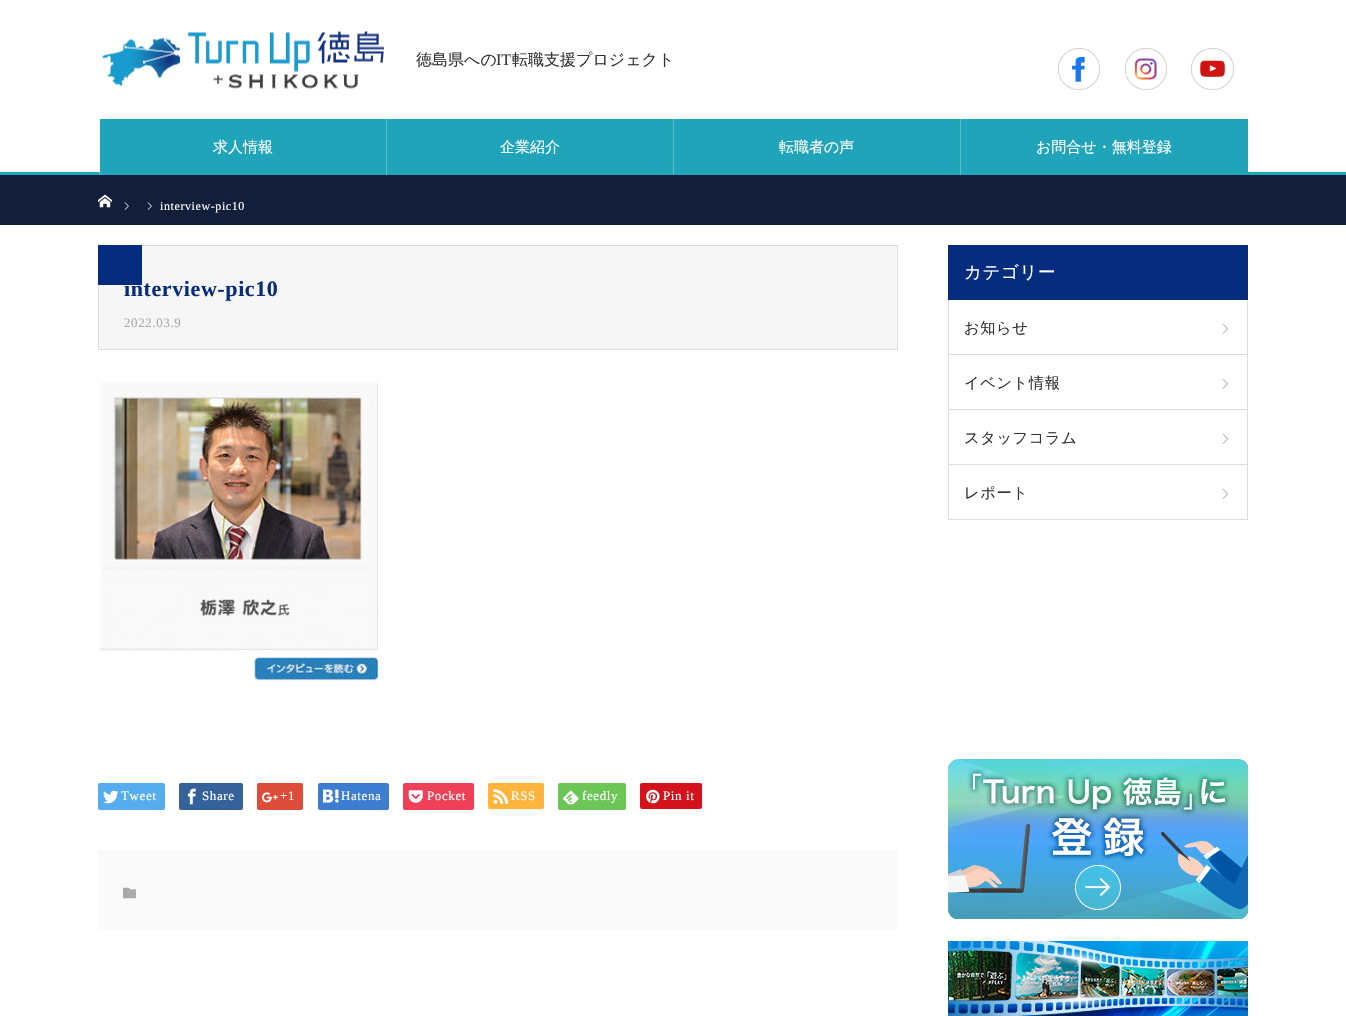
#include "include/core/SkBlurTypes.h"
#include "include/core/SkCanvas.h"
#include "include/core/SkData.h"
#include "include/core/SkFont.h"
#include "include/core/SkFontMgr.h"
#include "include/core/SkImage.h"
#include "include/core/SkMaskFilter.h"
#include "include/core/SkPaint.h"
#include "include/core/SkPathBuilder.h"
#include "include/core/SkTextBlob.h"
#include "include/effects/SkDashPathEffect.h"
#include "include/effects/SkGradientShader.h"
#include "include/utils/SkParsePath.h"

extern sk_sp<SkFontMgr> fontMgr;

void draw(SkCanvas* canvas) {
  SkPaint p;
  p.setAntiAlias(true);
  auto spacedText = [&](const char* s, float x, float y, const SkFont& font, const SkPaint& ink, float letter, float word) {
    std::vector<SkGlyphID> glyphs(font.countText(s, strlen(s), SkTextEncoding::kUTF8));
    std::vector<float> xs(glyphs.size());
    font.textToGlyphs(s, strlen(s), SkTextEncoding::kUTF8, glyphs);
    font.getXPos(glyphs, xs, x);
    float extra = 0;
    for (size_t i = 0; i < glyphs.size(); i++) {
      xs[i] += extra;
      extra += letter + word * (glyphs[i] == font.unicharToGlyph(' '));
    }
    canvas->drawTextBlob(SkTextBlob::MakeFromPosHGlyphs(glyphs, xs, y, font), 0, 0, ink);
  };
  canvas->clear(SK_ColorWHITE);
  p.setColor(SkColorSetRGB(32, 164, 185));
  canvas->drawRect(SkRect::MakeLTRB(0, 172, 1346, 175), p);
  p.setColor(SkColorSetRGB(99, 191, 206));
  canvas->drawRect(SkRect::MakeLTRB(99, 172, 100, 175), p);
  canvas->drawImageRect(SkImages::DeferredFromEncodedData(SkData::MakeFromFileName("images/1.png")), SkRect::MakeLTRB(102, 31, 385, 89), SkSamplingOptions());
  canvas->drawImageRect(SkImages::DeferredFromEncodedData(SkData::MakeFromFileName("images/2.png")), SkRect::MakeLTRB(1058, 48, 1100, 90), SkSamplingOptions());
  canvas->drawImageRect(SkImages::DeferredFromEncodedData(SkData::MakeFromFileName("images/3.png")), SkRect::MakeLTRB(1125, 48, 1167, 90), SkSamplingOptions());
  canvas->drawImageRect(SkImages::DeferredFromEncodedData(SkData::MakeFromFileName("images/4.png")), SkRect::MakeLTRB(1191, 48, 1234, 90), SkSamplingOptions());
  p.setColor(SkColorSetRGB(32, 164, 185));
  canvas->drawRect(SkRect::MakeLTRB(100, 119, 386, 172), p);
  p.setColor(SkColorSetRGB(88, 187, 203));
  canvas->drawRect(SkRect::MakeLTRB(386, 119, 387, 175), p);
  p.setColor(SkColorSetRGB(32, 164, 185));
  canvas->drawRect(SkRect::MakeLTRB(387, 119, 673, 172), p);
  p.setColor(SkColorSetRGB(88, 187, 203));
  canvas->drawRect(SkRect::MakeLTRB(673, 119, 674, 175), p);
  p.setColor(SkColorSetRGB(32, 164, 185));
  canvas->drawRect(SkRect::MakeLTRB(674, 119, 960, 172), p);
  p.setColor(SkColorSetRGB(88, 187, 203));
  canvas->drawRect(SkRect::MakeLTRB(960, 119, 961, 175), p);
  p.setColor(SkColorSetRGB(32, 164, 185));
  canvas->drawRect(SkRect::MakeLTRB(961, 119, 1248, 172), p);
  p.setColor(SkColorSetRGB(19, 30, 58));
  canvas->drawRect(SkRect::MakeLTRB(0, 175, 1346, 225), p);
  canvas->drawImageRect(SkImages::DeferredFromEncodedData(SkData::MakeFromFileName("images/5.png")), SkRect::MakeLTRB(98, 194, 112, 208), SkSamplingOptions());
  canvas->drawImageRect(SkImages::DeferredFromEncodedData(SkData::MakeFromFileName("images/6.png")), SkRect::MakeLTRB(124, 202, 129, 210), SkSamplingOptions());
  canvas->drawImageRect(SkImages::DeferredFromEncodedData(SkData::MakeFromFileName("images/6.png")), SkRect::MakeLTRB(147, 202, 152, 210), SkSamplingOptions());
  p.setColor(SkColorSetRGB(246, 246, 246));
  canvas->drawRect(SkRect::MakeLTRB(98.5f, 245.5f, 897.5f, 349.5f), p);
  p.setStyle(SkPaint::kStroke_Style);
  p.setStrokeWidth(1);
  p.setColor(SkColorSetRGB(221, 221, 221));
  canvas->drawRect(SkRect::MakeLTRB(98.5f, 245.5f, 897.5f, 349.5f), p);
  p.setStyle(SkPaint::kFill_Style);
  p.setColor(SkColorSetRGB(6, 44, 125));
  canvas->drawRect(SkRect::MakeLTRB(98, 245, 142, 285), p);
  canvas->drawImageRect(SkImages::DeferredFromEncodedData(SkData::MakeFromFileName("images/7.png")), SkRect::MakeLTRB(99, 382, 378, 682), SkSamplingOptions());
  p.setColor(SkColorSetRGB(247, 247, 247));
  canvas->drawPath(SkPathBuilder().moveTo(98, 808).cubicTo(98, 814, 107, 811, 110, 811).lineTo(152, 811).cubicTo(156, 811, 165, 814, 165, 808).lineTo(164, 810).lineTo(100, 810).lineTo(98, 809).close().detach(), p);
  p.setColor(SkColorSetRGB(85, 172, 238));
  canvas->drawRoundRect(SkRect::MakeLTRB(98, 783, 165, 810), 2, 2, p);
  canvas->drawImageRect(SkImages::DeferredFromEncodedData(SkData::MakeFromFileName("images/8.png")), SkRect::MakeLTRB(103, 790, 119, 804), SkSamplingOptions());
  p.setColor(SkColorSetRGB(247, 247, 247));
  canvas->drawPath(SkPathBuilder().moveTo(179, 808).cubicTo(179, 814, 187, 811, 191, 811).lineTo(231, 811).cubicTo(235, 811, 243, 814, 243, 808).lineTo(242, 810).lineTo(191, 810).cubicTo(187, 810, 179, 812, 179, 808).close().detach(), p);
  p.setColor(SkColorSetRGB(53, 98, 154));
  canvas->drawRoundRect(SkRect::MakeLTRB(179, 783, 243, 810), 2, 2, p);
  canvas->drawImageRect(SkImages::DeferredFromEncodedData(SkData::MakeFromFileName("images/9.png")), SkRect::MakeLTRB(187, 788, 196, 805), SkSamplingOptions());
  p.setColor(SkColorSetRGB(247, 247, 247));
  canvas->drawPath(SkPathBuilder().moveTo(257, 808).cubicTo(257, 813, 262, 811, 266, 811).lineTo(294, 811).cubicTo(298, 811, 303, 813, 303, 808).cubicTo(303, 809, 302, 810, 301, 810).lineTo(259, 810).cubicTo(258, 810, 257, 809, 257, 808).close().detach(), p);
  p.setColor(SkColorSetRGB(221, 75, 57));
  canvas->drawRoundRect(SkRect::MakeLTRB(257, 783, 303, 810), 2, 2, p);
  canvas->drawImageRect(SkImages::DeferredFromEncodedData(SkData::MakeFromFileName("images/10.png")), SkRect::MakeLTRB(262, 792, 278, 803), SkSamplingOptions());
  p.setColor(SkColorSetRGB(247, 247, 247));
  canvas->drawPath(SkPathBuilder().moveTo(318, 808).cubicTo(318, 814, 328, 811, 331, 811).lineTo(376, 811).cubicTo(379, 811, 389, 814, 389, 808).cubicTo(389, 809, 388, 810, 387, 810).lineTo(319, 810).close().detach(), p);
  p.setColor(SkColorSetRGB(60, 125, 209));
  canvas->drawRoundRect(SkRect::MakeLTRB(318, 783, 389, 810), 2, 2, p);
  canvas->drawImageRect(SkImages::DeferredFromEncodedData(SkData::MakeFromFileName("images/11.png")), SkRect::MakeLTRB(323, 789, 339, 803), SkSamplingOptions());
  p.setColor(SkColorSetRGB(247, 247, 247));
  canvas->drawPath(SkPathBuilder().moveTo(403, 808).cubicTo(403, 814, 413, 811, 416, 811).lineTo(461, 811).cubicTo(464, 811, 474, 814, 474, 808).cubicTo(474, 809, 473, 810, 472, 810).lineTo(404, 810).close().detach(), p);
  p.setColor(SkColorSetRGB(238, 64, 86));
  canvas->drawRoundRect(SkRect::MakeLTRB(403, 783, 474, 810), 2, 2, p);
  canvas->drawImageRect(SkImages::DeferredFromEncodedData(SkData::MakeFromFileName("images/12.png")), SkRect::MakeLTRB(408, 790, 423, 803), SkSamplingOptions());
  p.setColor(SkColorSetRGB(247, 247, 247));
  canvas->drawPath(SkPathBuilder().moveTo(488, 807).cubicTo(488, 812, 495, 810, 499, 810).lineTo(533, 810).cubicTo(537, 810, 544, 812, 544, 807).lineTo(543, 809).lineTo(489, 809).close().detach(), p);
  p.setColor(SkColorSetRGB(255, 181, 60));
  canvas->drawRoundRect(SkRect::MakeLTRB(488, 783, 544, 809), 2, 2, p);
  canvas->drawImageRect(SkImages::DeferredFromEncodedData(SkData::MakeFromFileName("images/13.png")), SkRect::MakeLTRB(493, 789, 509, 804), SkSamplingOptions());
  p.setColor(SkColorSetRGB(247, 247, 247));
  canvas->drawPath(SkPathBuilder().moveTo(558, 808).cubicTo(558, 814, 567, 811, 571, 811).lineTo(613, 811).cubicTo(617, 811, 626, 814, 626, 808).cubicTo(626, 809, 625, 810, 624, 810).lineTo(559, 810).close().detach(), p);
  p.setColor(SkColorSetRGB(108, 198, 85));
  canvas->drawRoundRect(SkRect::MakeLTRB(558, 783, 626, 810), 2, 2, p);
  canvas->drawImageRect(SkImages::DeferredFromEncodedData(SkData::MakeFromFileName("images/14.png")), SkRect::MakeLTRB(563, 790, 579, 805), SkSamplingOptions());
  p.setColor(SkColorSetRGB(247, 247, 247));
  canvas->drawPath(SkPathBuilder().moveTo(640, 807).cubicTo(640, 813, 648, 810, 652, 810).lineTo(690, 810).cubicTo(694, 810, 702, 813, 702, 807).lineTo(701, 809).lineTo(652, 809).cubicTo(648, 809, 640, 811, 640, 807).close().detach(), p);
  p.setColor(SkColorSetRGB(212, 18, 28));
  canvas->drawRoundRect(SkRect::MakeLTRB(640, 783, 702, 809), 2, 2, p);
  canvas->drawImageRect(SkImages::DeferredFromEncodedData(SkData::MakeFromFileName("images/15.png")), SkRect::MakeLTRB(646, 789, 660, 804), SkSamplingOptions());
  p.setColor(SkColorSetRGB(250, 250, 250));
  canvas->drawRect(SkRect::MakeLTRB(98, 850, 898, 929), p);
  canvas->drawImageRect(SkImages::DeferredFromEncodedData(SkData::MakeFromFileName("images/16.png")), SkRect::MakeLTRB(123, 887, 136, 899), SkSamplingOptions());
  p.setColor(SkColorSetRGB(6, 44, 125));
  canvas->drawRect(SkRect::MakeLTRB(948, 245, 1248, 300), p);
  p.setColor(SkColorSetRGB(221, 221, 221));
  canvas->drawRect(SkRect::MakeLTRB(1247, 300, 1248, 520), p);
  canvas->drawRect(SkRect::MakeLTRB(948, 354, 1248, 355), p);
  canvas->drawRect(SkRect::MakeLTRB(948, 300, 949, 355), p);
  canvas->drawImageRect(SkImages::DeferredFromEncodedData(SkData::MakeFromFileName("images/17.png")), SkRect::MakeLTRB(1222, 323, 1228, 334), SkSamplingOptions());
  canvas->drawRect(SkRect::MakeLTRB(948, 409, 1248, 410), p);
  canvas->drawRect(SkRect::MakeLTRB(948, 355, 949, 410), p);
  canvas->drawImageRect(SkImages::DeferredFromEncodedData(SkData::MakeFromFileName("images/17.png")), SkRect::MakeLTRB(1222, 378, 1228, 389), SkSamplingOptions());
  canvas->drawRect(SkRect::MakeLTRB(948, 464, 1248, 465), p);
  canvas->drawRect(SkRect::MakeLTRB(948, 410, 949, 465), p);
  canvas->drawImageRect(SkImages::DeferredFromEncodedData(SkData::MakeFromFileName("images/17.png")), SkRect::MakeLTRB(1222, 433, 1228, 444), SkSamplingOptions());
  canvas->drawRect(SkRect::MakeLTRB(948, 519, 1248, 520), p);
  canvas->drawRect(SkRect::MakeLTRB(948, 465, 949, 520), p);
  canvas->drawImageRect(SkImages::DeferredFromEncodedData(SkData::MakeFromFileName("images/17.png")), SkRect::MakeLTRB(1222, 488, 1228, 499), SkSamplingOptions());
  canvas->drawImageRect(SkImages::DeferredFromEncodedData(SkData::MakeFromFileName("images/18.png")), SkRect::MakeLTRB(948, 759, 1248, 919), SkSamplingOptions());
  canvas->drawImageRect(SkImages::DeferredFromEncodedData(SkData::MakeFromFileName("images/19.png")), SkRect::MakeLTRB(948, 941, 1248, 1016), SkSamplingOptions());
  SkFont font1(fontMgr->matchFamilyStyle("WenQuanYi Zen Hei", SkFontStyle(500, SkFontStyle::kNormal_Width, SkFontStyle::kUpright_Slant)), 16);
  font1.setSubpixel(true);
  p.setColor(SkColorSetRGB(51, 51, 51));
  canvas->drawString("徳島県への", 416, 65, font1, p);
  SkFont font2(fontMgr->matchFamilyStyle("Liberation Serif", SkFontStyle::Normal()), 16);
  font2.setSubpixel(true);
  canvas->drawString("IT", 496, 65, font2, p);
  canvas->drawString("転職支援プロジェクト", 512, 65, font1, p);
  SkFont font3(fontMgr->matchFamilyStyle("WenQuanYi Zen Hei", SkFontStyle(500, SkFontStyle::kNormal_Width, SkFontStyle::kUpright_Slant)), 15);
  font3.setSubpixel(true);
  p.setColor(SK_ColorWHITE);
  canvas->drawString("求人情報", 213, 152, font3, p);
  canvas->drawString("企業紹介", 500, 152, font3, p);
  canvas->drawString("転職者の声", 779, 152, font3, p);
  canvas->drawString("お問合せ・無料登録", 1036, 152, font3, p);
  SkFont font4(fontMgr->matchFamilyStyle("Liberation Serif", SkFontStyle::Normal()), 12);
  font4.setSubpixel(true);
  spacedText("interview-pic10", 160, 210, font4, p, 0.6f, 0);
  SkFont font5(fontMgr->matchFamilyStyle("Liberation Serif", SkFontStyle::Bold()), 22);
  font5.setSubpixel(true);
  p.setColor(SkColorSetRGB(6, 44, 125));
  spacedText("interview-pic10", 124, 296, font5, p, 0.6f, 0);
  SkFont font6(fontMgr->matchFamilyStyle("Liberation Serif", SkFontStyle::Normal()), 13);
  font6.setSubpixel(true);
  p.setColor(SkColorSetRGB(170, 170, 170));
  spacedText("2022.03.9", 124, 327, font6, p, 0.6f, 0);
  p.setColor(SK_ColorWHITE);
  spacedText("Tweet", 121, 800, font6, p, 0.6f, 0);
  spacedText("Share", 202, 800, font6, p, 0.6f, 0);
  spacedText("+1", 280, 800, font6, p, 0.6f, 0);
  spacedText("Hatena", 341, 800, font6, p, 0.6f, 0);
  spacedText("Pocket", 427, 800, font6, p, 0.6f, 0);
  spacedText("RSS", 511, 800, font6, p, 0.6f, 0);
  spacedText("feedly", 582, 800, font6, p, 0.6f, 0);
  spacedText("Pin it", 663, 800, font6, p, 0.6f, 0);
  SkFont font7(fontMgr->matchFamilyStyle("WenQuanYi Zen Hei", SkFontStyle(500, SkFontStyle::kNormal_Width, SkFontStyle::kUpright_Slant)), 17.5f);
  font7.setSubpixel(true);
  spacedText("カテゴリー", 964, 278, font7, p, 0.6f, 0);
  SkFont font8(fontMgr->matchFamilyStyle("WenQuanYi Zen Hei", SkFontStyle(500, SkFontStyle::kNormal_Width, SkFontStyle::kUpright_Slant)), 15.25f);
  font8.setSubpixel(true);
  p.setColor(SkColorSetRGB(51, 51, 51));
  spacedText("お知らせ", 964, 333, font8, p, 0.6f, 0);
  spacedText("イベント情報", 964, 388, font8, p, 0.6f, 0);
  spacedText("スタッフコラム", 964, 443, font8, p, 0.6f, 0);
  spacedText("レポート", 964, 498, font8, p, 0.6f, 0);
}
